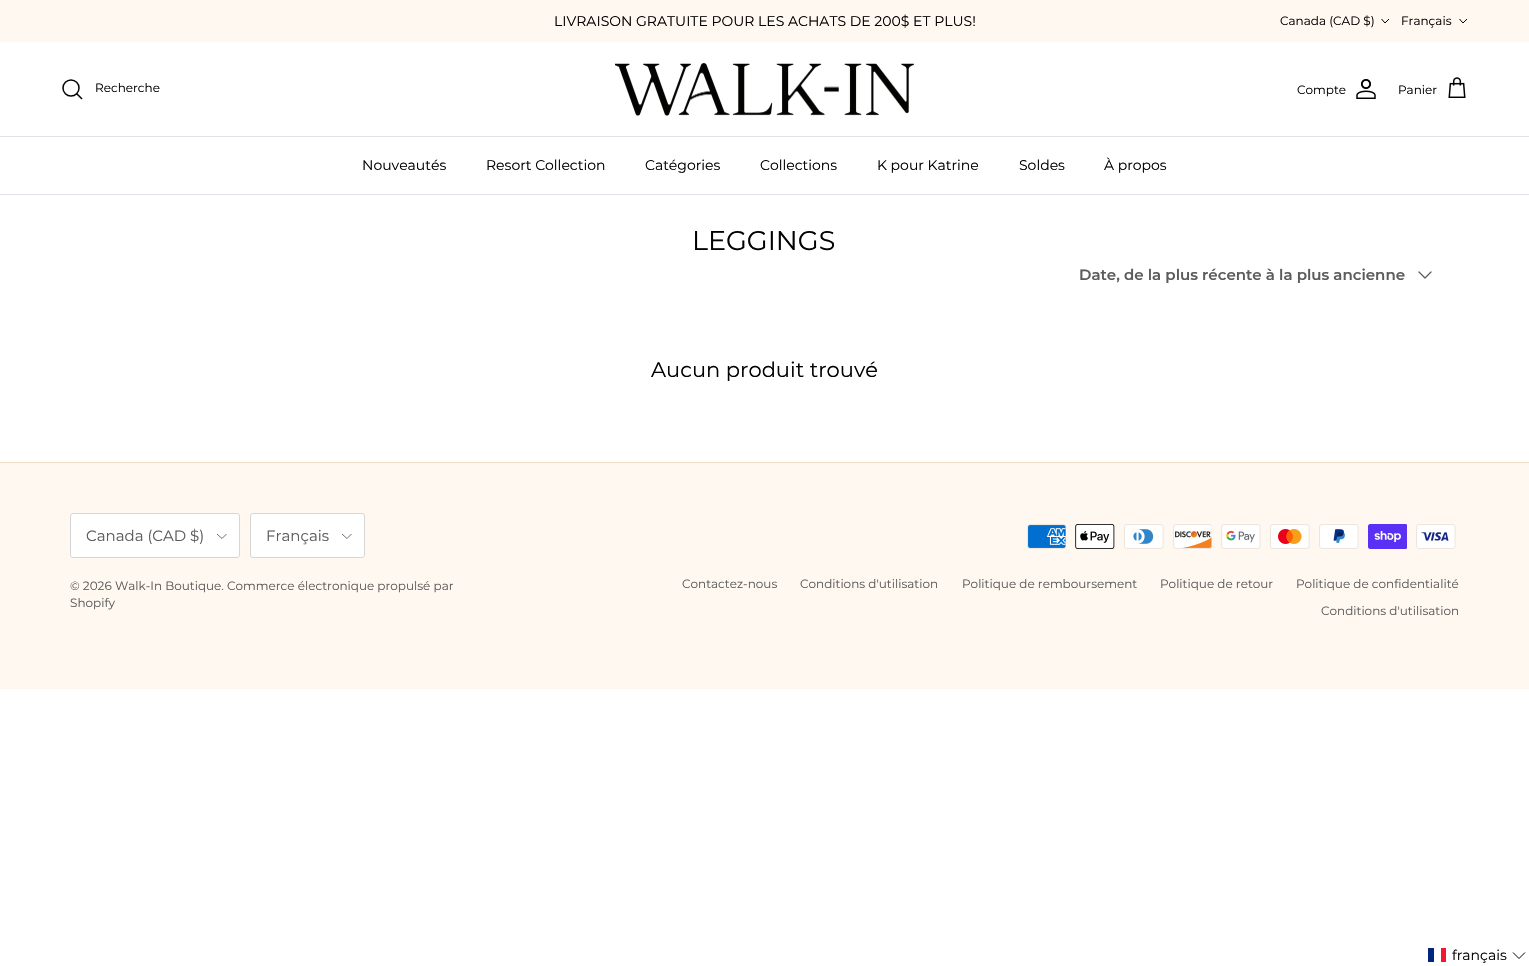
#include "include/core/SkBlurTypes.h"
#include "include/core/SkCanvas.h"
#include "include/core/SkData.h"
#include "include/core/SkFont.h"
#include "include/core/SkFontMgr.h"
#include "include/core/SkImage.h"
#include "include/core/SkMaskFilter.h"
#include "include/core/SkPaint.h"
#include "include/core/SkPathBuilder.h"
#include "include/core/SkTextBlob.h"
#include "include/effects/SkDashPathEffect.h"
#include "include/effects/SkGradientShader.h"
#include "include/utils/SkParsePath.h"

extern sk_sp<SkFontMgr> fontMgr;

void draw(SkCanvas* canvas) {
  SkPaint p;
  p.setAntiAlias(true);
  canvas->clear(SK_ColorWHITE);
  p.setColor(SkColorSetRGB(255, 248, 240));
  canvas->drawRect(SkRect::MakeLTRB(0, 0, 1529, 42), p);
  p.setStyle(SkPaint::kStroke_Style);
  p.setStrokeWidth(1);
  p.setColor(SK_ColorBLACK);
  canvas->drawPath(SkPathBuilder().moveTo(1389, 19).lineTo(1385, 23).lineTo(1381.5f, 19).detach(), p);
  canvas->drawPath(SkPathBuilder().moveTo(1467, 19).lineTo(1463, 23).lineTo(1459.5f, 19).detach(), p);
  p.setStyle(SkPaint::kFill_Style);
  p.setColor(SkColorSetRGB(223, 227, 232));
  canvas->drawRect(SkRect::MakeLTRB(0, 136, 1529, 137), p);
  p.setStyle(SkPaint::kStroke_Style);
  p.setStrokeWidth(1.5f);
  p.setColor(SkColorSetRGB(2, 0, 0));
  canvas->drawCircle(71, 88, 8, p);
  p.setStrokeCap(SkPaint::kSquare_Cap);
  canvas->drawPath(SkPathBuilder().moveTo(77, 94).lineTo(81.5f, 98.5f).detach(), p);
  canvas->drawImageRect(SkImages::DeferredFromEncodedData(SkData::MakeFromFileName("images/1.png")), SkRect::MakeLTRB(615, 63, 915, 116), SkSamplingOptions());
  canvas->drawImageRect(SkImages::DeferredFromEncodedData(SkData::MakeFromFileName("images/2.png")), SkRect::MakeLTRB(1356, 79, 1376, 99), SkSamplingOptions());
  canvas->drawImageRect(SkImages::DeferredFromEncodedData(SkData::MakeFromFileName("images/3.png")), SkRect::MakeLTRB(1448, 77, 1466, 98), SkSamplingOptions());
  p.setStyle(SkPaint::kFill_Style);
  p.setColor(SkColorSetRGB(223, 227, 232));
  canvas->drawRect(SkRect::MakeLTRB(0, 194, 1529, 195), p);
  p.setStyle(SkPaint::kStroke_Style);
  p.setStrokeWidth(1.3f);
  p.setStrokeCap(SkPaint::kRound_Cap);
  p.setStrokeJoin(SkPaint::kRound_Join);
  p.setColor(SkColorSetRGB(92, 92, 92));
  canvas->drawPath(SkPathBuilder().moveTo(1419, 272).lineTo(1425, 278).lineTo(1431, 272).detach(), p);
  p.setStyle(SkPaint::kFill_Style);
  p.setColor(SkColorSetRGB(255, 248, 240));
  canvas->drawRect(SkRect::MakeLTRB(0, 463, 1529, 689), p);
  p.setColor(SkColorSetRGB(239, 223, 199));
  canvas->drawRect(SkRect::MakeLTRB(0, 462, 1529, 463), p);
  p.setColor(SK_ColorWHITE);
  canvas->drawRoundRect(SkRect::MakeLTRB(70.5f, 513.5f, 239.5f, 557.5f), 2.5f, 2.5f, p);
  p.setStyle(SkPaint::kStroke_Style);
  p.setStrokeWidth(1);
  p.setStrokeCap(SkPaint::kButt_Cap);
  p.setStrokeJoin(SkPaint::kMiter_Join);
  p.setColor(SkColorSetRGB(214, 214, 214));
  canvas->drawRoundRect(SkRect::MakeLTRB(70.5f, 513.5f, 239.5f, 557.5f), 2.5f, 2.5f, p);
  p.setStrokeWidth(0.9f);
  p.setColor(SkColorSetRGB(92, 92, 92));
  canvas->drawPath(SkPathBuilder().moveTo(226.5f, 534).lineTo(222, 538.5f).lineTo(217, 534).detach(), p);
  p.setStyle(SkPaint::kFill_Style);
  p.setColor(SK_ColorWHITE);
  canvas->drawRoundRect(SkRect::MakeLTRB(250.5f, 513.5f, 364.5f, 557.5f), 2.5f, 2.5f, p);
  p.setStyle(SkPaint::kStroke_Style);
  p.setStrokeWidth(1);
  p.setColor(SkColorSetRGB(214, 214, 214));
  canvas->drawRoundRect(SkRect::MakeLTRB(250.5f, 513.5f, 364.5f, 557.5f), 2.5f, 2.5f, p);
  p.setStrokeWidth(0.9f);
  p.setColor(SkColorSetRGB(92, 92, 92));
  canvas->drawPath(SkPathBuilder().moveTo(351.5f, 534).lineTo(347, 538.5f).lineTo(342, 534).detach(), p);
  canvas->drawImageRect(SkImages::DeferredFromEncodedData(SkData::MakeFromFileName("images/4.png")), SkRect::MakeLTRB(1027, 524, 1066, 549), SkSamplingOptions());
  canvas->drawImageRect(SkImages::DeferredFromEncodedData(SkData::MakeFromFileName("images/5.png")), SkRect::MakeLTRB(1075, 524, 1115, 549), SkSamplingOptions());
  canvas->drawImageRect(SkImages::DeferredFromEncodedData(SkData::MakeFromFileName("images/6.png")), SkRect::MakeLTRB(1124, 524, 1164, 549), SkSamplingOptions());
  canvas->drawImageRect(SkImages::DeferredFromEncodedData(SkData::MakeFromFileName("images/7.png")), SkRect::MakeLTRB(1173, 524, 1212, 549), SkSamplingOptions());
  canvas->drawImageRect(SkImages::DeferredFromEncodedData(SkData::MakeFromFileName("images/8.png")), SkRect::MakeLTRB(1221, 524, 1261, 549), SkSamplingOptions());
  canvas->drawImageRect(SkImages::DeferredFromEncodedData(SkData::MakeFromFileName("images/9.png")), SkRect::MakeLTRB(1270, 524, 1310, 549), SkSamplingOptions());
  canvas->drawImageRect(SkImages::DeferredFromEncodedData(SkData::MakeFromFileName("images/10.png")), SkRect::MakeLTRB(1319, 524, 1359, 549), SkSamplingOptions());
  canvas->drawImageRect(SkImages::DeferredFromEncodedData(SkData::MakeFromFileName("images/11.png")), SkRect::MakeLTRB(1368, 524, 1407, 549), SkSamplingOptions());
  canvas->drawImageRect(SkImages::DeferredFromEncodedData(SkData::MakeFromFileName("images/12.png")), SkRect::MakeLTRB(1416, 524, 1456, 549), SkSamplingOptions());
  p.setStyle(SkPaint::kFill_Style);
  p.setColor(SkColorSetRGB(0, 38, 127));
  canvas->drawRect(SkRect::MakeLTRB(1428, 948, 1434, 962), p);
  p.setColor(SkColorSetRGB(243, 24, 48));
  canvas->drawRect(SkRect::MakeLTRB(1441, 948, 1446, 962), p);
  p.setStyle(SkPaint::kStroke_Style);
  p.setStrokeWidth(1);
  p.setColor(SK_ColorBLACK);
  canvas->drawPath(SkPathBuilder().moveTo(1513, 952.5f).lineTo(1519, 958.5f).lineTo(1525, 952.5f).detach(), p);
  SkFont font1(fontMgr->matchFamilyStyle("Montserrat", SkFontStyle::Normal()), 14);
  font1.setSubpixel(true);
  p.setStyle(SkPaint::kFill_Style);
  p.setColor(SkColorSetRGB(2, 0, 0));
  canvas->drawString("LIVRAISON GRATUITE POUR LES ACHATS DE 200$ ET PLUS!", 554, 26, font1, p);
  SkFont font2(fontMgr->matchFamilyStyle("Montserrat", SkFontStyle::Normal()), 12);
  font2.setSubpixel(true);
  canvas->drawString("Canada (CAD $)", 1280, 25, font2, p);
  canvas->drawString("Français", 1401, 25, font2, p);
  canvas->drawString("Recherche", 95, 92, font2, p);
  canvas->drawString("Compte", 1297, 94, font2, p);
  canvas->drawString("Panier", 1398, 94, font2, p);
  canvas->drawString("Nouveautés", 362, 170, font1, p);
  canvas->drawString("Resort Collection", 486, 170, font1, p);
  canvas->drawString("Catégories", 645, 170, font1, p);
  canvas->drawString("Collections", 760, 170, font1, p);
  canvas->drawString("K pour Katrine", 877, 170, font1, p);
  canvas->drawString("Soldes", 1019, 170, font1, p);
  canvas->drawString("À propos", 1104, 170, font1, p);
  SkFont font3(fontMgr->matchFamilyStyle("Montserrat", SkFontStyle::Normal()), 27);
  font3.setSubpixel(true);
  canvas->drawString("LEGGINGS", 692, 250, font3, p);
  SkFont font4(fontMgr->matchFamilyStyle("Montserrat", SkFontStyle(600, SkFontStyle::kNormal_Width, SkFontStyle::kUpright_Slant)), 15);
  font4.setSubpixel(true);
  p.setColor(SkColorSetRGB(92, 92, 92));
  canvas->drawString("Date, de la plus récente à la plus ancienne", 1079, 280, font4, p);
  SkFont font5(fontMgr->matchFamilyStyle("Montserrat", SkFontStyle::Normal()), 21);
  font5.setSubpixel(true);
  p.setColor(SkColorSetRGB(2, 0, 0));
  canvas->drawString("Aucun produit trouvé", 651, 377, font5, p);
  SkFont font6(fontMgr->matchFamilyStyle("Montserrat", SkFontStyle::Normal()), 15);
  font6.setSubpixel(true);
  p.setColor(SkColorSetRGB(92, 92, 92));
  canvas->drawString("Canada (CAD $)", 86, 541, font6, p);
  canvas->drawString("Français", 266, 541, font6, p);
  canvas->drawString("© 2026 Walk-In Boutique. Commerce électronique propulsé par", 70, 590, font2, p);
  canvas->drawString("Shopify", 70, 607, font2, p);
  canvas->drawString("Contactez-nous", 682, 588, font2, p);
  canvas->drawString("Conditions d'utilisation", 800, 588, font2, p);
  canvas->drawString("Politique de remboursement", 962, 588, font2, p);
  canvas->drawString("Politique de retour", 1160, 588, font2, p);
  canvas->drawString("Politique de confidentialité", 1296, 588, font2, p);
  canvas->drawString("Conditions d'utilisation", 1321, 615, font2, p);
  p.setColor(SkColorSetRGB(2, 0, 0));
  canvas->drawString("français", 1452, 960, font1, p);
}
